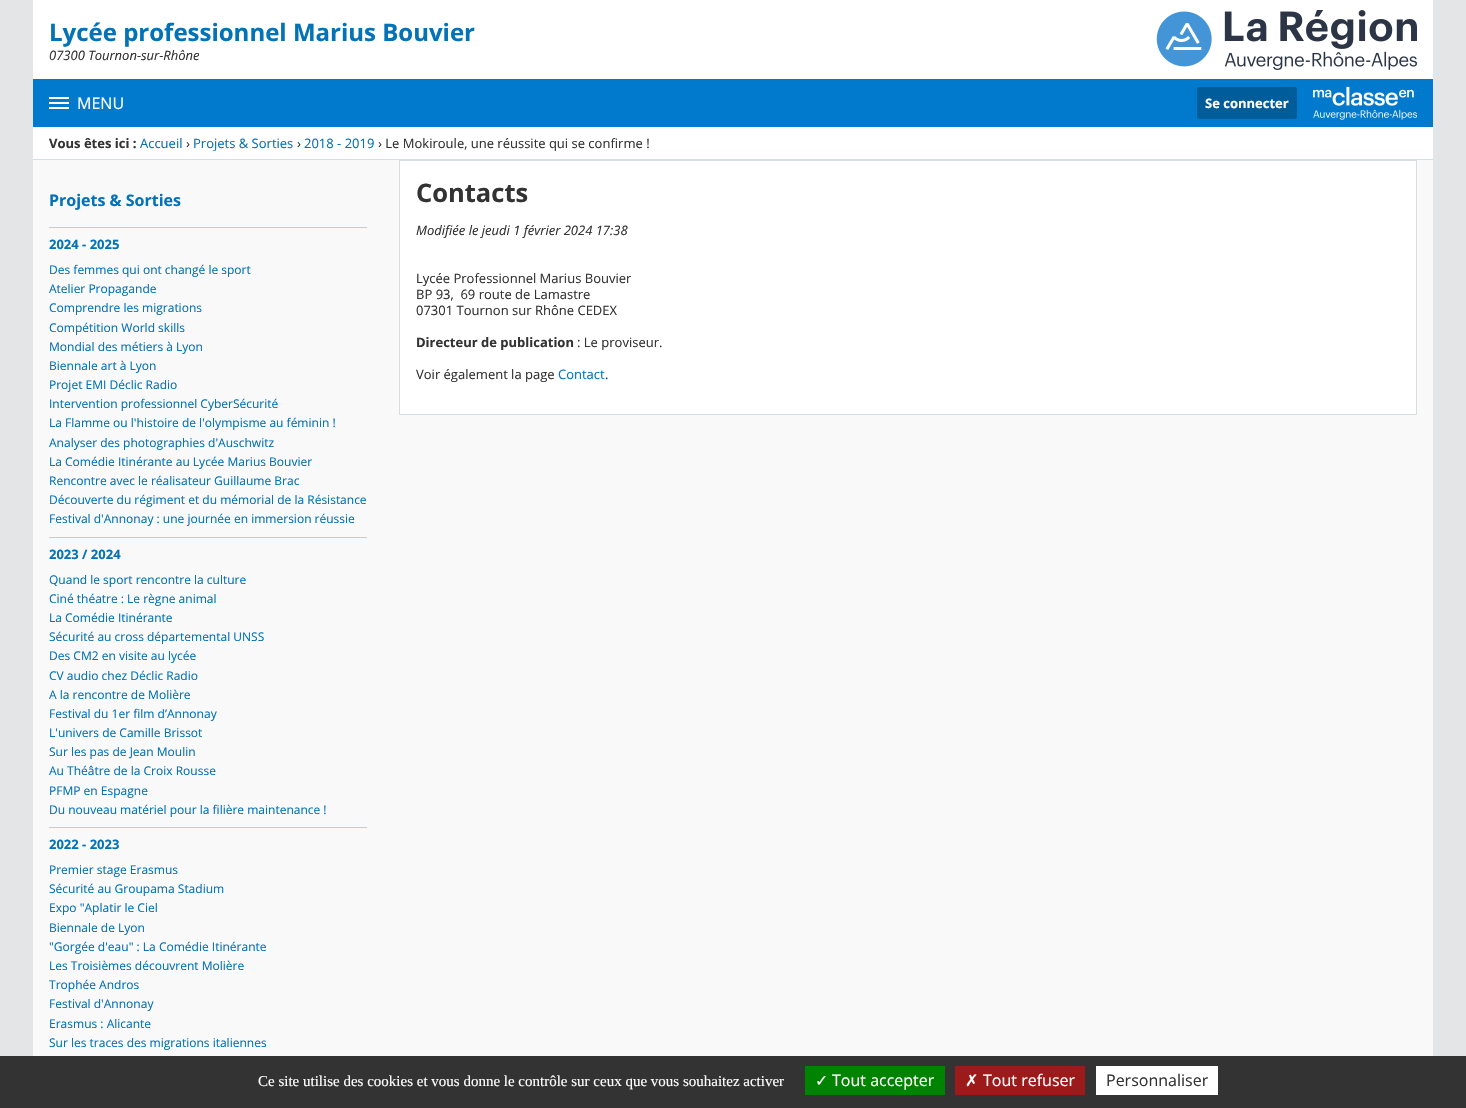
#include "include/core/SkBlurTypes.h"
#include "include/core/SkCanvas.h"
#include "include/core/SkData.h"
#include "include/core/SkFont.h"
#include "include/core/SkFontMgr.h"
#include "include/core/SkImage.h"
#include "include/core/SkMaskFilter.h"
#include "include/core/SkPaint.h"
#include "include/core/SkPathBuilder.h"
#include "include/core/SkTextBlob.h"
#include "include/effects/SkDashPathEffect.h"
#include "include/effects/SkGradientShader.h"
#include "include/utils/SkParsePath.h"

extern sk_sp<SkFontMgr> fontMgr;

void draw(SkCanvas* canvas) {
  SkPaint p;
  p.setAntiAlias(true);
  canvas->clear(SkColorSetRGB(228, 229, 231));
  p.setColor(SK_ColorWHITE);
  canvas->drawRect(SkRect::MakeLTRB(33, 0, 1433, 159), p);
  canvas->drawImageRect(SkImages::DeferredFromEncodedData(SkData::MakeFromFileName("images/1.png")), SkRect::MakeLTRB(1156, 10, 1417, 70), SkSamplingOptions());
  p.setColor(SkColorSetRGB(1, 122, 205));
  canvas->drawRect(SkRect::MakeLTRB(33, 79, 1433, 127), p);
  canvas->drawImageRect(SkImages::DeferredFromEncodedData(SkData::MakeFromFileName("images/2.png")), SkRect::MakeLTRB(1313, 86, 1417, 120), SkSamplingOptions());
  p.setColor(SK_ColorWHITE);
  canvas->drawRect(SkRect::MakeLTRB(49, 97, 69, 99), p);
  canvas->drawRect(SkRect::MakeLTRB(49, 102, 69, 104), p);
  canvas->drawRect(SkRect::MakeLTRB(49, 107, 69, 109), p);
  p.setColor(SkColorSetRGB(1, 92, 154));
  canvas->drawRoundRect(SkRect::MakeLTRB(1197, 87, 1297, 119), 2, 2, p);
  p.setColor(SkColorSetRGB(215, 222, 226));
  canvas->drawRect(SkRect::MakeLTRB(33, 159, 1433, 160), p);
  p.setColor(SkColorSetRGB(249, 249, 249));
  canvas->drawRect(SkRect::MakeLTRB(33, 160, 1433, 1056), p);
  p.setColor(SkColorSetRGB(175, 211, 236));
  canvas->drawRect(SkRect::MakeLTRB(49, 227, 367, 228), p);
  canvas->drawRect(SkRect::MakeLTRB(49, 537, 367, 538), p);
  canvas->drawRect(SkRect::MakeLTRB(49, 827, 367, 828), p);
  p.setColor(SK_ColorWHITE);
  canvas->drawRect(SkRect::MakeLTRB(399.5f, 160.5f, 1416.5f, 414.5f), p);
  p.setStyle(SkPaint::kStroke_Style);
  p.setStrokeWidth(1);
  p.setColor(SkColorSetRGB(215, 222, 226));
  canvas->drawRect(SkRect::MakeLTRB(399.5f, 160.5f, 1416.5f, 414.5f), p);
  p.setStyle(SkPaint::kFill_Style);
  p.setColor(SkColorSetRGB(51, 51, 51));
  canvas->drawRect(SkRect::MakeLTRB(0, 1056, 1466, 1108), p);
  p.setColor(SkColorSetRGB(0, 131, 0));
  canvas->drawRect(SkRect::MakeLTRB(805, 1066, 945, 1095), p);
  p.setColor(SkColorSetRGB(156, 26, 26));
  canvas->drawRect(SkRect::MakeLTRB(955, 1066, 1085, 1095), p);
  p.setColor(SK_ColorWHITE);
  canvas->drawRect(SkRect::MakeLTRB(1096, 1066, 1218, 1095), p);
  SkFont font1(fontMgr->matchFamilyStyle("Open Sans", SkFontStyle::Bold()), 24);
  font1.setSubpixel(true);
  p.setColor(SkColorSetRGB(3, 114, 183));
  canvas->drawString("Lycée professionnel Marius Bouvier", 49, 41, font1, p);
  SkFont font2(fontMgr->matchFamilyStyle("Open Sans", SkFontStyle::Italic()), 13);
  font2.setSubpixel(true);
  p.setColor(SkColorSetRGB(51, 51, 51));
  canvas->drawString("07300 Tournon-sur-Rhône", 49, 60, font2, p);
  SkFont font3(fontMgr->matchFamilyStyle("Open Sans", SkFontStyle::Normal()), 16);
  font3.setSubpixel(true);
  p.setColor(SK_ColorWHITE);
  canvas->drawString("MENU", 77, 109, font3, p);
  SkFont font4(fontMgr->matchFamilyStyle("Open Sans", SkFontStyle::Bold()), 13);
  font4.setSubpixel(true);
  canvas->drawString("Se connecter", 1205, 108, font4, p);
  p.setColor(SkColorSetRGB(51, 51, 51));
  canvas->drawString("Vous êtes ici :", 49, 148, font4, p);
  SkFont font5(fontMgr->matchFamilyStyle("Open Sans", SkFontStyle::Normal()), 13);
  font5.setSubpixel(true);
  p.setColor(SkColorSetRGB(3, 114, 183));
  canvas->drawString("Accueil", 140, 148, font5, p);
  p.setColor(SkColorSetRGB(51, 51, 51));
  canvas->drawString("›", 186, 148, font5, p);
  p.setColor(SkColorSetRGB(3, 114, 183));
  canvas->drawString("Projets & Sorties", 193, 148, font5, p);
  p.setColor(SkColorSetRGB(51, 51, 51));
  canvas->drawString("›", 297, 148, font5, p);
  p.setColor(SkColorSetRGB(3, 114, 183));
  canvas->drawString("2018 - 2019", 304, 148, font5, p);
  p.setColor(SkColorSetRGB(51, 51, 51));
  canvas->drawString("› Le Mokiroule, une réussite qui se confirme !", 378, 148, font5, p);
  SkFont font6(fontMgr->matchFamilyStyle("Open Sans", SkFontStyle::Bold()), 16);
  font6.setSubpixel(true);
  p.setColor(SkColorSetRGB(3, 114, 183));
  canvas->drawString("Projets & Sorties", 49, 206, font6, p);
  canvas->drawString("2024 - 2025", 49, 249, font4, p);
  SkFont font7(fontMgr->matchFamilyStyle("Open Sans", SkFontStyle::Normal()), 12);
  font7.setSubpixel(true);
  canvas->drawString("Des femmes qui ont changé le sport", 49, 274, font7, p);
  canvas->drawString("Atelier Propagande", 49, 293, font7, p);
  canvas->drawString("Comprendre les migrations", 49, 312, font7, p);
  canvas->drawString("Compétition World skills", 49, 332, font7, p);
  canvas->drawString("Mondial des métiers à Lyon", 49, 351, font7, p);
  canvas->drawString("Biennale art à Lyon", 49, 370, font7, p);
  canvas->drawString("Projet EMI Déclic Radio", 49, 389, font7, p);
  canvas->drawString("Intervention professionnel CyberSécurité", 49, 408, font7, p);
  canvas->drawString("La Flamme ou l'histoire de l'olympisme au féminin !", 49, 427, font7, p);
  canvas->drawString("Analyser des photographies d'Auschwitz", 49, 447, font7, p);
  canvas->drawString("La Comédie Itinérante au Lycée Marius Bouvier", 49, 466, font7, p);
  canvas->drawString("Rencontre avec le réalisateur Guillaume Brac", 49, 485, font7, p);
  canvas->drawString("Découverte du régiment et du mémorial de la Résistance", 49, 504, font7, p);
  canvas->drawString("Festival d'Annonay : une journée en immersion réussie", 49, 523, font7, p);
  canvas->drawString("2023 / 2024", 49, 559, font4, p);
  canvas->drawString("Quand le sport rencontre la culture", 49, 584, font7, p);
  canvas->drawString("Ciné théatre : Le règne animal", 49, 603, font7, p);
  canvas->drawString("La Comédie Itinérante", 49, 622, font7, p);
  canvas->drawString("Sécurité au cross départemental UNSS", 49, 641, font7, p);
  canvas->drawString("Des CM2 en visite au lycée", 49, 660, font7, p);
  canvas->drawString("CV audio chez Déclic Radio", 49, 680, font7, p);
  canvas->drawString("A la rencontre de Molière", 49, 699, font7, p);
  canvas->drawString("Festival du 1er film d’Annonay", 49, 718, font7, p);
  canvas->drawString("L'univers de Camille Brissot", 49, 737, font7, p);
  canvas->drawString("Sur les pas de Jean Moulin", 49, 756, font7, p);
  canvas->drawString("Au Théâtre de la Croix Rousse", 49, 775, font7, p);
  canvas->drawString("PFMP en Espagne", 49, 795, font7, p);
  canvas->drawString("Du nouveau matériel pour la filière maintenance !", 49, 814, font7, p);
  canvas->drawString("2022 - 2023", 49, 849, font4, p);
  canvas->drawString("Premier stage Erasmus", 49, 874, font7, p);
  canvas->drawString("Sécurité au Groupama Stadium", 49, 893, font7, p);
  canvas->drawString("Expo \"Aplatir le Ciel", 49, 912, font7, p);
  canvas->drawString("Biennale de Lyon", 49, 932, font7, p);
  canvas->drawString("\"Gorgée d'eau\" : La Comédie Itinérante", 49, 951, font7, p);
  canvas->drawString("Les Troisièmes découvrent Molière", 49, 970, font7, p);
  canvas->drawString("Trophée Andros", 49, 989, font7, p);
  canvas->drawString("Festival d'Annonay", 49, 1008, font7, p);
  canvas->drawString("Erasmus : Alicante", 49, 1028, font7, p);
  canvas->drawString("Sur les traces des migrations italiennes", 49, 1047, font7, p);
  SkFont font8(fontMgr->matchFamilyStyle("Open Sans", SkFontStyle::Bold()), 25.5f);
  font8.setSubpixel(true);
  p.setColor(SkColorSetRGB(51, 51, 51));
  canvas->drawString("Contacts", 416, 202, font8, p);
  canvas->drawString("Modifiée le jeudi 1 février 2024 17:38", 416, 235, font2, p);
  canvas->drawString("Lycée Professionnel Marius Bouvier", 416, 283, font5, p);
  canvas->drawString("BP 93,  69 route de Lamastre", 416, 299, font5, p);
  canvas->drawString("07301 Tournon sur Rhône CEDEX", 416, 315, font5, p);
  canvas->drawString("Directeur de publication", 416, 347, font4, p);
  canvas->drawString(": Le proviseur.", 577, 347, font5, p);
  canvas->drawString("Voir également la page", 416, 379, font5, p);
  p.setColor(SkColorSetRGB(3, 114, 183));
  canvas->drawString("Contact", 558, 379, font5, p);
  p.setColor(SkColorSetRGB(51, 51, 51));
  canvas->drawString(".", 605, 379, font5, p);
  SkFont font9(fontMgr->matchFamilyStyle("Liberation Serif", SkFontStyle::Normal()), 15);
  font9.setSubpixel(true);
  p.setColor(SK_ColorWHITE);
  canvas->drawString("Ce site utilise des cookies et vous donne le contrôle sur ceux que vous souhaitez activer", 258, 1086, font9, p);
  SkFont font10(fontMgr->matchFamilyStyle("DejaVu Sans", SkFontStyle::Normal()), 16);
  font10.setSubpixel(true);
  canvas->drawString("✓", 815, 1086, font10, p);
  canvas->drawString("Tout accepter", 832, 1086, font3, p);
  canvas->drawString("✗", 965, 1086, font10, p);
  canvas->drawString("Tout refuser", 983, 1086, font3, p);
  p.setColor(SkColorSetRGB(51, 51, 51));
  canvas->drawString("Personnaliser", 1106, 1086, font3, p);
}
